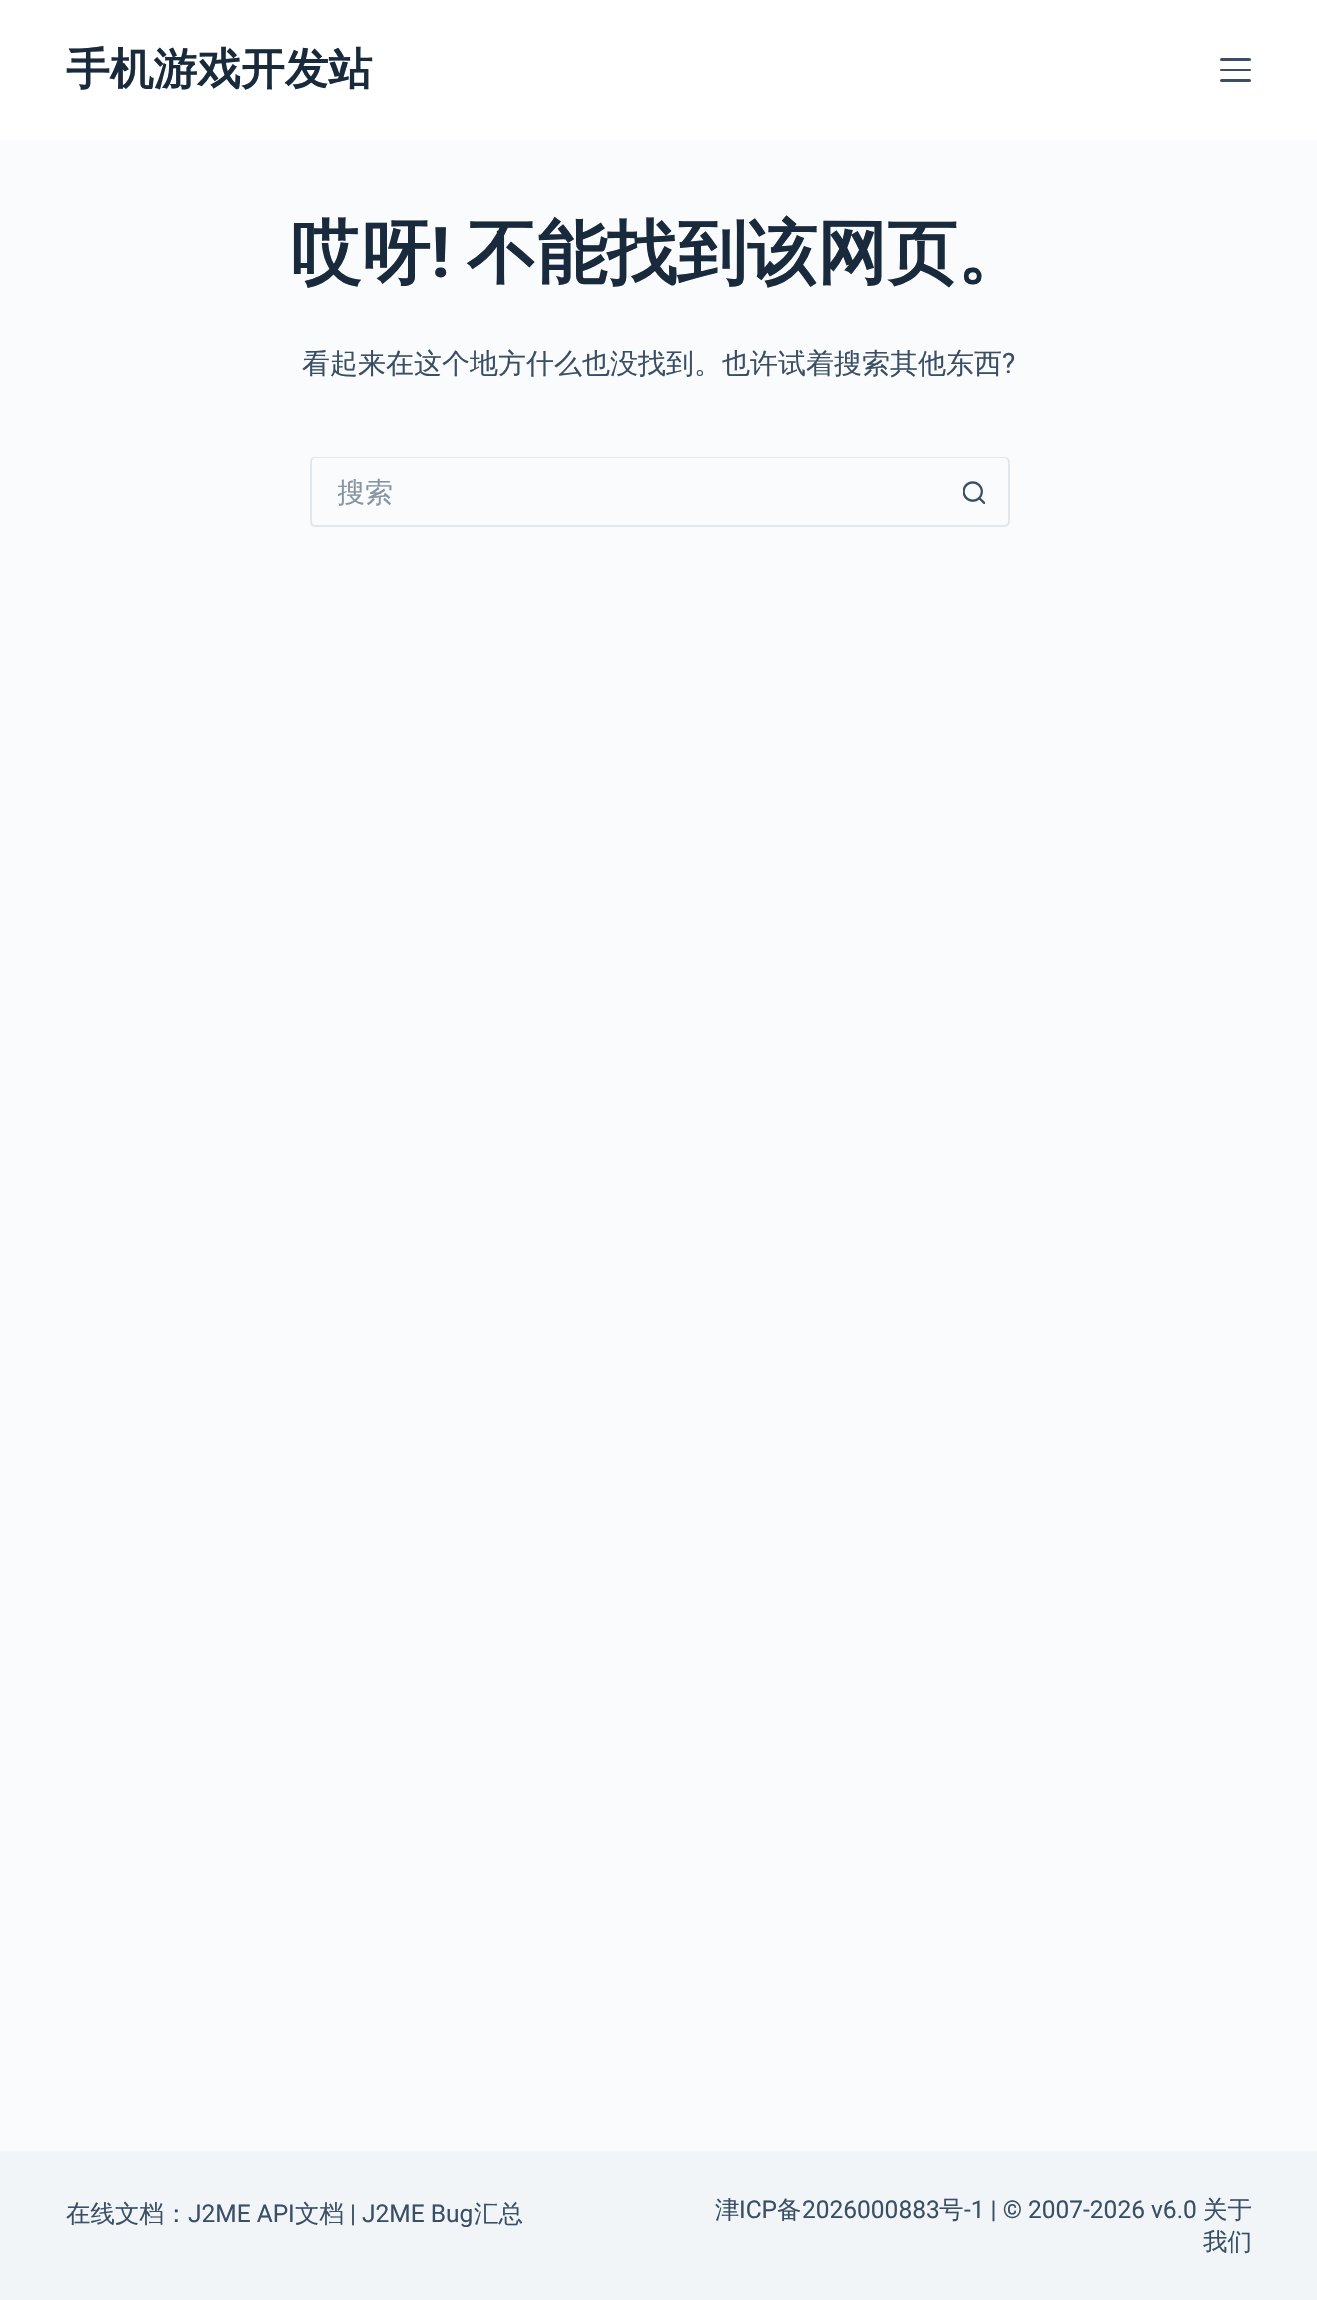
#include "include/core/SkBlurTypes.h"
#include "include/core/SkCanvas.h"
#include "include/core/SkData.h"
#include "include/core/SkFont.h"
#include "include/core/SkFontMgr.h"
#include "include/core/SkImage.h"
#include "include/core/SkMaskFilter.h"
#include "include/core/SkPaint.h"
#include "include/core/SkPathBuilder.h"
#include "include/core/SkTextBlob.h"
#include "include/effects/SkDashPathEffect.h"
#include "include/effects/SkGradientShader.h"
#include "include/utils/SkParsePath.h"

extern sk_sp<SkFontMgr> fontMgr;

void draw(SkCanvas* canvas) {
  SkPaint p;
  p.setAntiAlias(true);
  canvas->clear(SkColorSetRGB(250, 251, 252));
  p.setColor(SK_ColorWHITE);
  canvas->drawRect(SkRect::MakeLTRB(0, 0, 1317, 140), p);
  p.setColor(SkColorSetRGB(58, 79, 102));
  canvas->drawRoundRect(SkRect::MakeLTRB(1220, 58, 1251, 61), 1.5f, 1.5f, p);
  canvas->drawRoundRect(SkRect::MakeLTRB(1220, 69, 1251, 71), 1, 1, p);
  canvas->drawRoundRect(SkRect::MakeLTRB(1220, 79, 1251, 82), 1.5f, 1.5f, p);
  p.setColor(SkColorSetRGB(225, 232, 237));
  canvas->drawPath(SkPathBuilder(SkPathFillType::kEvenOdd).moveTo(315, 457).lineTo(940, 457).lineTo(940, 527).lineTo(315, 527).cubicTo(312, 527, 310, 524, 310, 522).lineTo(310, 462).cubicTo(310, 459, 312, 457, 315, 457).close().moveTo(315, 458).lineTo(940, 458).lineTo(940, 525).lineTo(315, 525).cubicTo(313, 525, 312, 523, 312, 522).lineTo(312, 462).cubicTo(312, 460, 313, 458, 315, 458).close().detach(), p);
  canvas->drawPath(SkPathBuilder(SkPathFillType::kEvenOdd).moveTo(940, 457).lineTo(1004, 457).cubicTo(1007, 457, 1010, 459, 1010, 462).lineTo(1010, 522).cubicTo(1010, 524, 1007, 527, 1004, 527).lineTo(940, 527).close().moveTo(940, 458).lineTo(1004, 458).cubicTo(1006, 458, 1008, 460, 1008, 462).lineTo(1008, 522).cubicTo(1008, 523, 1006, 525, 1004, 525).lineTo(940, 525).close().detach(), p);
  canvas->drawImageRect(SkImages::DeferredFromEncodedData(SkData::MakeFromFileName("images/1.png")), SkRect::MakeLTRB(963, 481, 985, 504), SkSamplingOptions());
  p.setColor(SkColorSetRGB(242, 245, 247));
  canvas->drawRect(SkRect::MakeLTRB(0, 2151, 1317, 2300), p);
  SkFont font1(fontMgr->matchFamilyStyle("WenQuanYi Zen Hei", SkFontStyle::Bold()), 43.75f);
  font1.setSubpixel(true);
  p.setColor(SkColorSetRGB(25, 42, 61));
  canvas->drawString("手机游戏开发站", 66, 84, font1, p);
  SkFont font2(fontMgr->matchFamilyStyle("WenQuanYi Zen Hei", SkFontStyle::Bold()), 70);
  font2.setSubpixel(true);
  canvas->drawString("哎呀", 291, 277, font2, p);
  SkFont font3(fontMgr->matchFamilyStyle("Roboto", SkFontStyle::Bold()), 70);
  font3.setSubpixel(true);
  canvas->drawString("!", 431, 277, font3, p);
  canvas->drawString("不能找到该网页。", 467, 277, font2, p);
  SkFont font4(fontMgr->matchFamilyStyle("WenQuanYi Zen Hei", SkFontStyle(500, SkFontStyle::kNormal_Width, SkFontStyle::kUpright_Slant)), 28);
  font4.setSubpixel(true);
  p.setColor(SkColorSetRGB(58, 79, 102));
  canvas->drawString("看起来在这个地方什么也没找到。也许试着搜索其他东西", 302, 373, font4, p);
  SkFont font5(fontMgr->matchFamilyStyle("Roboto", SkFontStyle::Normal()), 28);
  font5.setSubpixel(true);
  canvas->drawString("?", 1002, 373, font5, p);
  canvas->save();
  canvas->clipRect(SkRect::MakeLTRB(338, 476, 907, 513));
  p.setColor(SkColorSetRGB(135, 148, 162));
  canvas->drawString("搜索", 337, 502, font4, p);
  canvas->restore();
  SkFont font6(fontMgr->matchFamilyStyle("WenQuanYi Zen Hei", SkFontStyle(500, SkFontStyle::kNormal_Width, SkFontStyle::kUpright_Slant)), 24.5f);
  font6.setSubpixel(true);
  p.setColor(SkColorSetRGB(58, 79, 102));
  canvas->drawString("在线文档：", 66, 2222, font6, p);
  SkFont font7(fontMgr->matchFamilyStyle("Roboto", SkFontStyle::Normal()), 24.5f);
  font7.setSubpixel(true);
  canvas->drawString("J2ME API", 188, 2222, font7, p);
  canvas->drawString("文档", 295, 2222, font6, p);
  canvas->drawString("| J2ME Bug", 350, 2222, font7, p);
  canvas->drawString("汇总", 474, 2222, font6, p);
  canvas->drawString("津", 715, 2218, font6, p);
  canvas->drawString("ICP", 739, 2218, font7, p);
  canvas->drawString("备", 777, 2218, font6, p);
  canvas->drawString("2026000883", 802, 2218, font7, p);
  canvas->drawString("号", 939, 2218, font6, p);
  canvas->drawString("-1 | © 2007-2026 v6.0", 964, 2218, font7, p);
  canvas->drawString("关于", 1203, 2218, font6, p);
  canvas->drawString("我们", 1203, 2250, font6, p);
}
